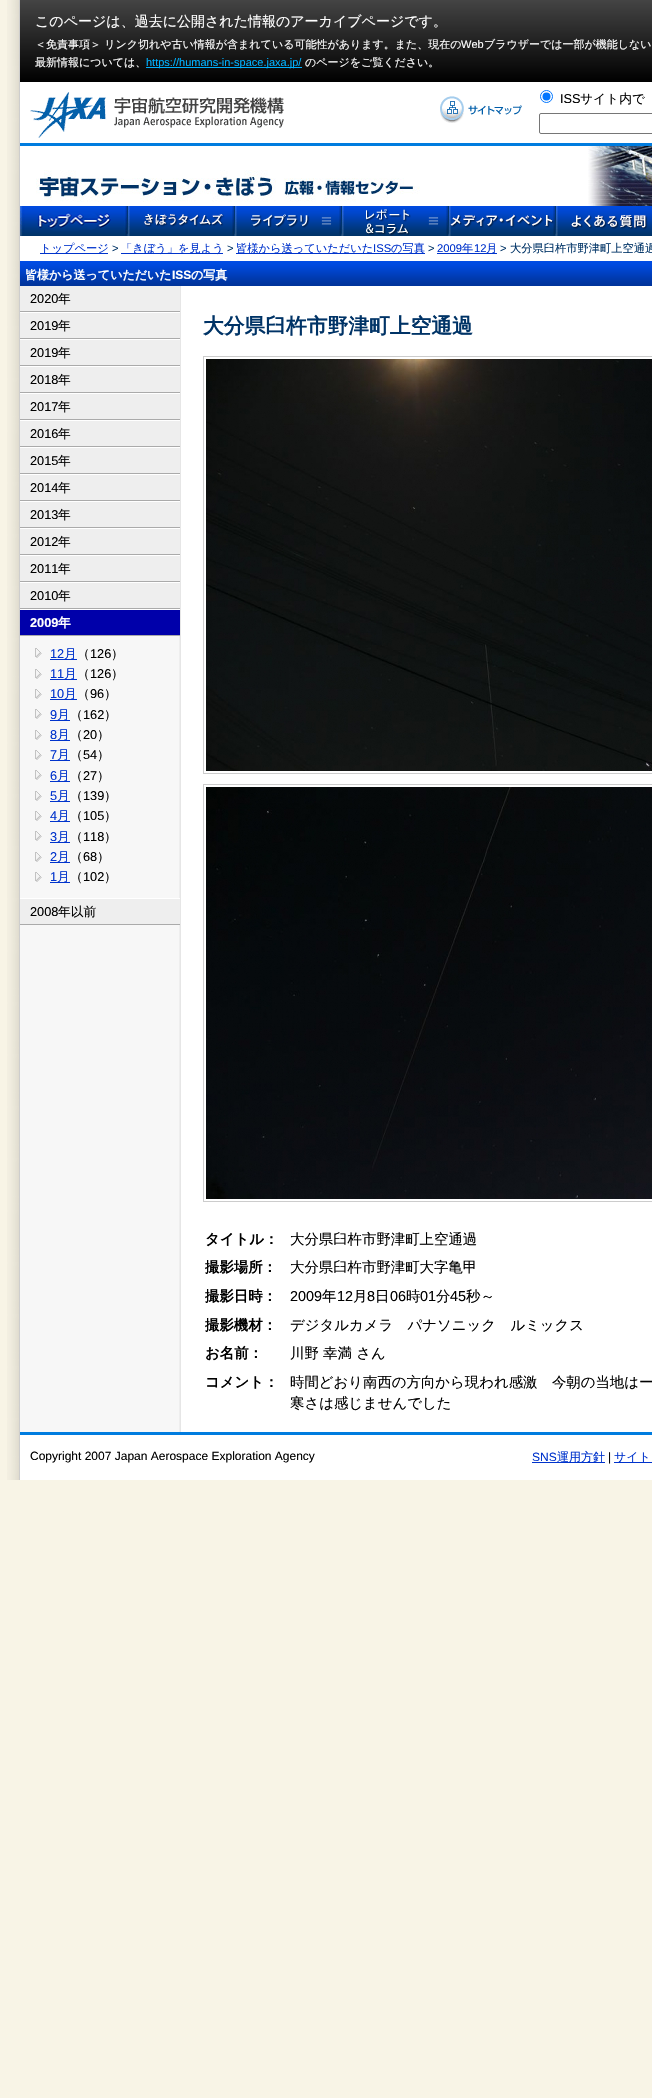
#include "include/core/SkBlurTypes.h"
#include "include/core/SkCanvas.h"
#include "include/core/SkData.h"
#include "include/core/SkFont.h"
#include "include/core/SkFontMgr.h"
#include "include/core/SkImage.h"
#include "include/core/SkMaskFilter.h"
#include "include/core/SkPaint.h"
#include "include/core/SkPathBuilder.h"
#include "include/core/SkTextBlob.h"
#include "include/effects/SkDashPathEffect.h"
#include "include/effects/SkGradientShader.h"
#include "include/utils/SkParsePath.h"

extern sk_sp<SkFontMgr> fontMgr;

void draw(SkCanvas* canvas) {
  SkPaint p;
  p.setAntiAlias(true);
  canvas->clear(SkColorSetRGB(248, 244, 230));
  canvas->drawImageRect(SkImages::DeferredFromEncodedData(SkData::MakeFromFileName("images/1.png")), SkRect::MakeLTRB(7, 0, 20, 1480), SkSamplingOptions());
  p.setColor(SK_ColorWHITE);
  canvas->drawRect(SkRect::MakeLTRB(20, 82, 652, 1480), p);
  {
    const SkColor colors[] = {SkColorSetRGB(68, 68, 68), SK_ColorBLACK};
    const float stops[] = {0, 1};
    const SkPoint ends[] = {{395, 0}, {395, 82}};
    p.setShader(SkGradientShader::MakeLinear(ends, colors, stops, 2, SkTileMode::kClamp));
    p.setAlpha(255);
  }
  canvas->drawRect(SkRect::MakeLTRB(20, 0, 652, 82), p);
  p.setShader(nullptr);
  p.setColor(SkColorSetRGB(0, 177, 255));
  canvas->drawRect(SkRect::MakeLTRB(146, 67, 302, 68), p);
  p.setColor(SkColorSetRGB(0, 124, 223));
  canvas->drawRect(SkRect::MakeLTRB(20, 143, 652, 146), p);
  canvas->drawImageRect(SkImages::DeferredFromEncodedData(SkData::MakeFromFileName("images/2.png")), SkRect::MakeLTRB(30, 92, 284, 138), SkSamplingOptions());
  canvas->drawImageRect(SkImages::DeferredFromEncodedData(SkData::MakeFromFileName("images/3.png")), SkRect::MakeLTRB(440, 96, 522, 123), SkSamplingOptions());
  p.setStyle(SkPaint::kStroke_Style);
  p.setStrokeWidth(1);
  p.setColor(SkColorSetRGB(0, 117, 255));
  canvas->drawCircle(546.5f, 96.5f, 6, p);
  p.setStyle(SkPaint::kFill_Style);
  canvas->drawCircle(546.5f, 96.5f, 4, p);
  p.setStyle(SkPaint::kStroke_Style);
  p.setColor(SkColorSetRGB(118, 118, 118));
  canvas->drawRoundRect(SkRect::MakeLTRB(539.5f, 113.5f, 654.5f, 133.5f), 1.5f, 1.5f, p);
  canvas->drawImageRect(SkImages::DeferredFromEncodedData(SkData::MakeFromFileName("images/4.png")), SkRect::MakeLTRB(36, 146, 652, 206), SkSamplingOptions());
  canvas->drawImageRect(SkImages::DeferredFromEncodedData(SkData::MakeFromFileName("images/5.png")), SkRect::MakeLTRB(20, 206, 128, 236), SkSamplingOptions());
  canvas->drawImageRect(SkImages::DeferredFromEncodedData(SkData::MakeFromFileName("images/6.png")), SkRect::MakeLTRB(128, 206, 235, 236), SkSamplingOptions());
  canvas->drawImageRect(SkImages::DeferredFromEncodedData(SkData::MakeFromFileName("images/7.png")), SkRect::MakeLTRB(235, 206, 342, 236), SkSamplingOptions());
  canvas->drawImageRect(SkImages::DeferredFromEncodedData(SkData::MakeFromFileName("images/8.png")), SkRect::MakeLTRB(342, 206, 449, 236), SkSamplingOptions());
  canvas->drawImageRect(SkImages::DeferredFromEncodedData(SkData::MakeFromFileName("images/9.png")), SkRect::MakeLTRB(449, 206, 556, 236), SkSamplingOptions());
  canvas->drawImageRect(SkImages::DeferredFromEncodedData(SkData::MakeFromFileName("images/10.png")), SkRect::MakeLTRB(556, 206, 652, 236), SkSamplingOptions());
  p.setStyle(SkPaint::kFill_Style);
  p.setColor(SkColorSetRGB(0, 51, 204));
  canvas->drawRect(SkRect::MakeLTRB(40, 253, 108, 254), p);
  canvas->drawRect(SkRect::MakeLTRB(121, 253, 223, 254), p);
  canvas->drawRect(SkRect::MakeLTRB(236, 253, 425, 254), p);
  canvas->drawRect(SkRect::MakeLTRB(437, 253, 497, 254), p);
  canvas->drawImageRect(SkImages::DeferredFromEncodedData(SkData::MakeFromFileName("images/11.png")), SkRect::MakeLTRB(20, 261, 652, 286), SkSamplingOptions());
  canvas->drawImageRect(SkImages::DeferredFromEncodedData(SkData::MakeFromFileName("images/12.png")), SkRect::MakeLTRB(20, 286, 181, 1432), SkSamplingOptions());
  p.setColor(SkColorSetRGB(238, 238, 238));
  canvas->drawRect(SkRect::MakeLTRB(20, 286, 179, 311), p);
  p.setColor(SkColorSetRGB(170, 170, 170));
  canvas->drawRect(SkRect::MakeLTRB(20, 311, 180, 312), p);
  p.setColor(SkColorSetRGB(238, 238, 238));
  canvas->drawRect(SkRect::MakeLTRB(20, 313, 179, 338), p);
  p.setColor(SK_ColorWHITE);
  canvas->drawRect(SkRect::MakeLTRB(20, 312, 180, 313), p);
  p.setColor(SkColorSetRGB(170, 170, 170));
  canvas->drawRect(SkRect::MakeLTRB(20, 338, 180, 339), p);
  p.setColor(SkColorSetRGB(238, 238, 238));
  canvas->drawRect(SkRect::MakeLTRB(20, 340, 179, 365), p);
  p.setColor(SK_ColorWHITE);
  canvas->drawRect(SkRect::MakeLTRB(20, 339, 180, 340), p);
  p.setColor(SkColorSetRGB(170, 170, 170));
  canvas->drawRect(SkRect::MakeLTRB(20, 365, 180, 366), p);
  p.setColor(SkColorSetRGB(238, 238, 238));
  canvas->drawRect(SkRect::MakeLTRB(20, 367, 179, 392), p);
  p.setColor(SK_ColorWHITE);
  canvas->drawRect(SkRect::MakeLTRB(20, 366, 180, 367), p);
  p.setColor(SkColorSetRGB(170, 170, 170));
  canvas->drawRect(SkRect::MakeLTRB(20, 392, 180, 393), p);
  p.setColor(SkColorSetRGB(238, 238, 238));
  canvas->drawRect(SkRect::MakeLTRB(20, 394, 179, 419), p);
  p.setColor(SK_ColorWHITE);
  canvas->drawRect(SkRect::MakeLTRB(20, 393, 180, 394), p);
  p.setColor(SkColorSetRGB(170, 170, 170));
  canvas->drawRect(SkRect::MakeLTRB(20, 419, 180, 420), p);
  p.setColor(SkColorSetRGB(238, 238, 238));
  canvas->drawRect(SkRect::MakeLTRB(20, 421, 179, 446), p);
  p.setColor(SK_ColorWHITE);
  canvas->drawRect(SkRect::MakeLTRB(20, 420, 180, 421), p);
  p.setColor(SkColorSetRGB(170, 170, 170));
  canvas->drawRect(SkRect::MakeLTRB(20, 446, 180, 447), p);
  p.setColor(SkColorSetRGB(238, 238, 238));
  canvas->drawRect(SkRect::MakeLTRB(20, 448, 179, 473), p);
  p.setColor(SK_ColorWHITE);
  canvas->drawRect(SkRect::MakeLTRB(20, 447, 180, 448), p);
  p.setColor(SkColorSetRGB(170, 170, 170));
  canvas->drawRect(SkRect::MakeLTRB(20, 473, 180, 474), p);
  p.setColor(SkColorSetRGB(238, 238, 238));
  canvas->drawRect(SkRect::MakeLTRB(20, 475, 179, 500), p);
  p.setColor(SK_ColorWHITE);
  canvas->drawRect(SkRect::MakeLTRB(20, 474, 180, 475), p);
  p.setColor(SkColorSetRGB(170, 170, 170));
  canvas->drawRect(SkRect::MakeLTRB(20, 500, 180, 501), p);
  p.setColor(SkColorSetRGB(238, 238, 238));
  canvas->drawRect(SkRect::MakeLTRB(20, 502, 179, 527), p);
  p.setColor(SK_ColorWHITE);
  canvas->drawRect(SkRect::MakeLTRB(20, 501, 180, 502), p);
  p.setColor(SkColorSetRGB(170, 170, 170));
  canvas->drawRect(SkRect::MakeLTRB(20, 527, 180, 528), p);
  p.setColor(SkColorSetRGB(238, 238, 238));
  canvas->drawRect(SkRect::MakeLTRB(20, 529, 179, 554), p);
  p.setColor(SK_ColorWHITE);
  canvas->drawRect(SkRect::MakeLTRB(20, 528, 180, 529), p);
  p.setColor(SkColorSetRGB(170, 170, 170));
  canvas->drawRect(SkRect::MakeLTRB(20, 554, 180, 555), p);
  p.setColor(SkColorSetRGB(238, 238, 238));
  canvas->drawRect(SkRect::MakeLTRB(20, 556, 179, 581), p);
  p.setColor(SK_ColorWHITE);
  canvas->drawRect(SkRect::MakeLTRB(20, 555, 180, 556), p);
  p.setColor(SkColorSetRGB(170, 170, 170));
  canvas->drawRect(SkRect::MakeLTRB(20, 581, 180, 582), p);
  p.setColor(SkColorSetRGB(238, 238, 238));
  canvas->drawRect(SkRect::MakeLTRB(20, 583, 179, 608), p);
  p.setColor(SK_ColorWHITE);
  canvas->drawRect(SkRect::MakeLTRB(20, 582, 180, 583), p);
  p.setColor(SkColorSetRGB(170, 170, 170));
  canvas->drawRect(SkRect::MakeLTRB(20, 608, 180, 609), p);
  p.setColor(SkColorSetRGB(0, 0, 170));
  canvas->drawRect(SkRect::MakeLTRB(20, 610, 180, 635), p);
  p.setColor(SK_ColorWHITE);
  canvas->drawRect(SkRect::MakeLTRB(20, 609, 180, 610), p);
  p.setColor(SkColorSetRGB(170, 170, 170));
  canvas->drawRect(SkRect::MakeLTRB(20, 635, 180, 636), p);
  canvas->drawImageRect(SkImages::DeferredFromEncodedData(SkData::MakeFromFileName("images/13.png")), SkRect::MakeLTRB(35, 648, 42, 658), SkSamplingOptions());
  p.setColor(SkColorSetRGB(0, 51, 204));
  canvas->drawRect(SkRect::MakeLTRB(50, 659, 77, 660), p);
  canvas->drawImageRect(SkImages::DeferredFromEncodedData(SkData::MakeFromFileName("images/13.png")), SkRect::MakeLTRB(35, 669, 42, 679), SkSamplingOptions());
  canvas->drawRect(SkRect::MakeLTRB(50, 679, 77, 680), p);
  canvas->drawImageRect(SkImages::DeferredFromEncodedData(SkData::MakeFromFileName("images/13.png")), SkRect::MakeLTRB(35, 689, 42, 699), SkSamplingOptions());
  canvas->drawRect(SkRect::MakeLTRB(50, 699, 77, 700), p);
  canvas->drawImageRect(SkImages::DeferredFromEncodedData(SkData::MakeFromFileName("images/13.png")), SkRect::MakeLTRB(35, 709, 42, 719), SkSamplingOptions());
  canvas->drawRect(SkRect::MakeLTRB(50, 720, 70, 721), p);
  canvas->drawImageRect(SkImages::DeferredFromEncodedData(SkData::MakeFromFileName("images/13.png")), SkRect::MakeLTRB(35, 730, 42, 740), SkSamplingOptions());
  canvas->drawRect(SkRect::MakeLTRB(50, 740, 70, 741), p);
  canvas->drawImageRect(SkImages::DeferredFromEncodedData(SkData::MakeFromFileName("images/13.png")), SkRect::MakeLTRB(35, 750, 42, 760), SkSamplingOptions());
  canvas->drawRect(SkRect::MakeLTRB(50, 760, 70, 761), p);
  canvas->drawImageRect(SkImages::DeferredFromEncodedData(SkData::MakeFromFileName("images/13.png")), SkRect::MakeLTRB(35, 770, 42, 780), SkSamplingOptions());
  canvas->drawRect(SkRect::MakeLTRB(50, 781, 70, 782), p);
  canvas->drawImageRect(SkImages::DeferredFromEncodedData(SkData::MakeFromFileName("images/13.png")), SkRect::MakeLTRB(35, 791, 42, 801), SkSamplingOptions());
  canvas->drawRect(SkRect::MakeLTRB(50, 801, 70, 802), p);
  canvas->drawImageRect(SkImages::DeferredFromEncodedData(SkData::MakeFromFileName("images/13.png")), SkRect::MakeLTRB(35, 811, 42, 821), SkSamplingOptions());
  canvas->drawRect(SkRect::MakeLTRB(50, 821, 70, 822), p);
  canvas->drawImageRect(SkImages::DeferredFromEncodedData(SkData::MakeFromFileName("images/13.png")), SkRect::MakeLTRB(35, 831, 42, 841), SkSamplingOptions());
  canvas->drawRect(SkRect::MakeLTRB(50, 842, 70, 843), p);
  canvas->drawImageRect(SkImages::DeferredFromEncodedData(SkData::MakeFromFileName("images/13.png")), SkRect::MakeLTRB(35, 852, 42, 862), SkSamplingOptions());
  canvas->drawRect(SkRect::MakeLTRB(50, 862, 70, 863), p);
  canvas->drawImageRect(SkImages::DeferredFromEncodedData(SkData::MakeFromFileName("images/13.png")), SkRect::MakeLTRB(35, 872, 42, 882), SkSamplingOptions());
  canvas->drawRect(SkRect::MakeLTRB(50, 882, 70, 883), p);
  p.setColor(SkColorSetRGB(238, 238, 238));
  canvas->drawRect(SkRect::MakeLTRB(20, 899, 179, 924), p);
  p.setColor(SK_ColorWHITE);
  canvas->drawRect(SkRect::MakeLTRB(20, 898, 180, 899), p);
  p.setColor(SkColorSetRGB(170, 170, 170));
  canvas->drawRect(SkRect::MakeLTRB(20, 924, 180, 925), p);
  p.setStyle(SkPaint::kStroke_Style);
  p.setColor(SkColorSetRGB(204, 204, 204));
  canvas->drawRect(SkRect::MakeLTRB(203.5f, 356.5f, 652.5f, 773.5f), p);
  canvas->drawImageRect(SkImages::DeferredFromEncodedData(SkData::MakeFromFileName("images/14.png")), SkRect::MakeLTRB(206, 359, 652, 771), SkSamplingOptions());
  canvas->drawRect(SkRect::MakeLTRB(203.5f, 784.5f, 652.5f, 1201.5f), p);
  canvas->drawImageRect(SkImages::DeferredFromEncodedData(SkData::MakeFromFileName("images/15.png")), SkRect::MakeLTRB(206, 787, 652, 1199), SkSamplingOptions());
  p.setStyle(SkPaint::kFill_Style);
  p.setColor(SkColorSetRGB(0, 124, 223));
  canvas->drawRect(SkRect::MakeLTRB(20, 1432, 652, 1435), p);
  p.setColor(SkColorSetRGB(0, 51, 204));
  canvas->drawRect(SkRect::MakeLTRB(532, 1462, 605, 1463), p);
  canvas->drawRect(SkRect::MakeLTRB(614, 1462, 652, 1463), p);
  SkFont font1(fontMgr->matchFamilyStyle("WenQuanYi Zen Hei", SkFontStyle(500, SkFontStyle::kNormal_Width, SkFontStyle::kUpright_Slant)), 14);
  font1.setSubpixel(true);
  p.setColor(SK_ColorWHITE);
  canvas->drawString("このページは、過去に公開された情報のアーカイブページです。", 35, 26, font1, p);
  SkFont font2(fontMgr->matchFamilyStyle("WenQuanYi Zen Hei", SkFontStyle(500, SkFontStyle::kNormal_Width, SkFontStyle::kUpright_Slant)), 11);
  font2.setSubpixel(true);
  canvas->drawString("＜免責事項＞ リンク切れや古い情報が含まれている可能性があります。また、現在の", 35, 48, font2, p);
  SkFont font3(fontMgr->matchFamilyStyle("Liberation Sans", SkFontStyle::Normal()), 11);
  font3.setSubpixel(true);
  canvas->drawString("Web", 461, 48, font3, p);
  canvas->drawString("ブラウザーでは⼀部が機能しない", 484, 48, font2, p);
  canvas->drawString("最新情報については、", 35, 66, font2, p);
  p.setColor(SkColorSetRGB(0, 177, 255));
  canvas->drawString("https://humans-in-space.jaxa.jp/", 146, 66, font3, p);
  p.setColor(SK_ColorWHITE);
  canvas->drawString("のページをご覧ください。", 305, 66, font2, p);
  SkFont font4(fontMgr->matchFamilyStyle("Liberation Sans", SkFontStyle::Normal()), 12.75f);
  font4.setSubpixel(true);
  p.setColor(SK_ColorBLACK);
  canvas->drawString("ISS", 560, 103, font4, p);
  SkFont font5(fontMgr->matchFamilyStyle("WenQuanYi Zen Hei", SkFontStyle(500, SkFontStyle::kNormal_Width, SkFontStyle::kUpright_Slant)), 12.75f);
  font5.setSubpixel(true);
  canvas->drawString("サイト内で", 580, 103, font5, p);
  SkFont font6(fontMgr->matchFamilyStyle("WenQuanYi Zen Hei", SkFontStyle(500, SkFontStyle::kNormal_Width, SkFontStyle::kUpright_Slant)), 11.25f);
  font6.setSubpixel(true);
  p.setColor(SkColorSetRGB(0, 51, 204));
  canvas->drawString("トップページ", 40, 252, font6, p);
  SkFont font7(fontMgr->matchFamilyStyle("Liberation Sans", SkFontStyle::Normal()), 11.25f);
  font7.setSubpixel(true);
  p.setColor(SkColorSetRGB(0, 51, 102));
  canvas->drawString(">", 112, 252, font7, p);
  p.setColor(SkColorSetRGB(0, 51, 204));
  canvas->drawString("「きぼう」を見よう", 121, 252, font6, p);
  p.setColor(SkColorSetRGB(0, 51, 102));
  canvas->drawString(">", 227, 252, font7, p);
  p.setColor(SkColorSetRGB(0, 51, 204));
  canvas->drawString("皆様から送っていただいた", 236, 252, font6, p);
  canvas->drawString("ISS", 373, 252, font7, p);
  canvas->drawString("の写真", 391, 252, font6, p);
  p.setColor(SkColorSetRGB(0, 51, 102));
  canvas->drawString(">", 428, 252, font7, p);
  p.setColor(SkColorSetRGB(0, 51, 204));
  canvas->drawString("2009", 437, 252, font7, p);
  canvas->drawString("年", 462, 252, font6, p);
  canvas->drawString("12", 474, 252, font7, p);
  canvas->drawString("月", 486, 252, font6, p);
  p.setColor(SkColorSetRGB(0, 51, 102));
  canvas->drawString(">", 500, 252, font7, p);
  canvas->drawString("大分県臼杵市野津町上空通過", 510, 252, font6, p);
  SkFont font8(fontMgr->matchFamilyStyle("WenQuanYi Zen Hei", SkFontStyle::Bold()), 12);
  font8.setSubpixel(true);
  p.setColor(SK_ColorWHITE);
  canvas->drawString("皆様から送っていただいた", 25, 279, font8, p);
  SkFont font9(fontMgr->matchFamilyStyle("Liberation Sans", SkFontStyle::Bold()), 12);
  font9.setSubpixel(true);
  canvas->drawString("ISS", 172, 279, font9, p);
  canvas->drawString("の写真", 191, 279, font8, p);
  p.setColor(SK_ColorBLACK);
  canvas->drawString("2020", 30, 303, font4, p);
  canvas->drawString("年", 58, 303, font5, p);
  canvas->drawString("2019", 30, 330, font4, p);
  canvas->drawString("年", 58, 330, font5, p);
  canvas->drawString("2019", 30, 357, font4, p);
  canvas->drawString("年", 58, 357, font5, p);
  canvas->drawString("2018", 30, 384, font4, p);
  canvas->drawString("年", 58, 384, font5, p);
  canvas->drawString("2017", 30, 411, font4, p);
  canvas->drawString("年", 58, 411, font5, p);
  canvas->drawString("2016", 30, 438, font4, p);
  canvas->drawString("年", 58, 438, font5, p);
  canvas->drawString("2015", 30, 465, font4, p);
  canvas->drawString("年", 58, 465, font5, p);
  canvas->drawString("2014", 30, 492, font4, p);
  canvas->drawString("年", 58, 492, font5, p);
  canvas->drawString("2013", 30, 519, font4, p);
  canvas->drawString("年", 58, 519, font5, p);
  canvas->drawString("2012", 30, 546, font4, p);
  canvas->drawString("年", 58, 546, font5, p);
  canvas->drawString("2011", 30, 573, font4, p);
  canvas->drawString("年", 58, 573, font5, p);
  canvas->drawString("2010", 30, 600, font4, p);
  canvas->drawString("年", 58, 600, font5, p);
  SkFont font10(fontMgr->matchFamilyStyle("Liberation Sans", SkFontStyle::Bold()), 12.75f);
  font10.setSubpixel(true);
  p.setColor(SK_ColorWHITE);
  canvas->drawString("2009", 30, 627, font10, p);
  SkFont font11(fontMgr->matchFamilyStyle("WenQuanYi Zen Hei", SkFontStyle::Bold()), 12.75f);
  font11.setSubpixel(true);
  canvas->drawString("年", 58, 627, font11, p);
  p.setColor(SkColorSetRGB(0, 51, 204));
  canvas->drawString("12", 50, 658, font4, p);
  canvas->drawString("月", 64, 658, font5, p);
  p.setColor(SK_ColorBLACK);
  canvas->drawString("（", 77, 658, font5, p);
  canvas->drawString("126", 90, 658, font4, p);
  canvas->drawString("）", 111, 658, font5, p);
  p.setColor(SkColorSetRGB(0, 51, 204));
  canvas->drawString("11", 50, 678, font4, p);
  canvas->drawString("月", 64, 678, font5, p);
  p.setColor(SK_ColorBLACK);
  canvas->drawString("（", 77, 678, font5, p);
  canvas->drawString("126", 90, 678, font4, p);
  canvas->drawString("）", 111, 678, font5, p);
  p.setColor(SkColorSetRGB(0, 51, 204));
  canvas->drawString("10", 50, 698, font4, p);
  canvas->drawString("月", 64, 698, font5, p);
  p.setColor(SK_ColorBLACK);
  canvas->drawString("（", 77, 698, font5, p);
  canvas->drawString("96", 90, 698, font4, p);
  canvas->drawString("）", 104, 698, font5, p);
  p.setColor(SkColorSetRGB(0, 51, 204));
  canvas->drawString("9", 50, 719, font4, p);
  canvas->drawString("月", 57, 719, font5, p);
  p.setColor(SK_ColorBLACK);
  canvas->drawString("（", 70, 719, font5, p);
  canvas->drawString("162", 83, 719, font4, p);
  canvas->drawString("）", 104, 719, font5, p);
  p.setColor(SkColorSetRGB(0, 51, 204));
  canvas->drawString("8", 50, 739, font4, p);
  canvas->drawString("月", 57, 739, font5, p);
  p.setColor(SK_ColorBLACK);
  canvas->drawString("（", 70, 739, font5, p);
  canvas->drawString("20", 83, 739, font4, p);
  canvas->drawString("）", 97, 739, font5, p);
  p.setColor(SkColorSetRGB(0, 51, 204));
  canvas->drawString("7", 50, 759, font4, p);
  canvas->drawString("月", 57, 759, font5, p);
  p.setColor(SK_ColorBLACK);
  canvas->drawString("（", 70, 759, font5, p);
  canvas->drawString("54", 83, 759, font4, p);
  canvas->drawString("）", 97, 759, font5, p);
  p.setColor(SkColorSetRGB(0, 51, 204));
  canvas->drawString("6", 50, 780, font4, p);
  canvas->drawString("月", 57, 780, font5, p);
  p.setColor(SK_ColorBLACK);
  canvas->drawString("（", 70, 780, font5, p);
  canvas->drawString("27", 83, 780, font4, p);
  canvas->drawString("）", 97, 780, font5, p);
  p.setColor(SkColorSetRGB(0, 51, 204));
  canvas->drawString("5", 50, 800, font4, p);
  canvas->drawString("月", 57, 800, font5, p);
  p.setColor(SK_ColorBLACK);
  canvas->drawString("（", 70, 800, font5, p);
  canvas->drawString("139", 83, 800, font4, p);
  canvas->drawString("）", 104, 800, font5, p);
  p.setColor(SkColorSetRGB(0, 51, 204));
  canvas->drawString("4", 50, 820, font4, p);
  canvas->drawString("月", 57, 820, font5, p);
  p.setColor(SK_ColorBLACK);
  canvas->drawString("（", 70, 820, font5, p);
  canvas->drawString("105", 83, 820, font4, p);
  canvas->drawString("）", 104, 820, font5, p);
  p.setColor(SkColorSetRGB(0, 51, 204));
  canvas->drawString("3", 50, 841, font4, p);
  canvas->drawString("月", 57, 841, font5, p);
  p.setColor(SK_ColorBLACK);
  canvas->drawString("（", 70, 841, font5, p);
  canvas->drawString("118", 83, 841, font4, p);
  canvas->drawString("）", 104, 841, font5, p);
  p.setColor(SkColorSetRGB(0, 51, 204));
  canvas->drawString("2", 50, 861, font4, p);
  canvas->drawString("月", 57, 861, font5, p);
  p.setColor(SK_ColorBLACK);
  canvas->drawString("（", 70, 861, font5, p);
  canvas->drawString("68", 83, 861, font4, p);
  canvas->drawString("）", 97, 861, font5, p);
  p.setColor(SkColorSetRGB(0, 51, 204));
  canvas->drawString("1", 50, 881, font4, p);
  canvas->drawString("月", 57, 881, font5, p);
  p.setColor(SK_ColorBLACK);
  canvas->drawString("（", 70, 881, font5, p);
  canvas->drawString("102", 83, 881, font4, p);
  canvas->drawString("）", 104, 881, font5, p);
  canvas->drawString("2008", 30, 916, font4, p);
  canvas->drawString("年以前", 58, 916, font5, p);
  SkFont font12(fontMgr->matchFamilyStyle("WenQuanYi Zen Hei", SkFontStyle::Bold()), 20.75f);
  font12.setSubpixel(true);
  p.setColor(SkColorSetRGB(0, 51, 102));
  canvas->drawString("大分県臼杵市野津町上空通過", 203, 333, font12, p);
  SkFont font13(fontMgr->matchFamilyStyle("WenQuanYi Zen Hei", SkFontStyle::Bold()), 14.4f);
  font13.setSubpixel(true);
  p.setColor(SK_ColorBLACK);
  canvas->drawString("タイトル：", 205, 1244, font13, p);
  SkFont font14(fontMgr->matchFamilyStyle("WenQuanYi Zen Hei", SkFontStyle(500, SkFontStyle::kNormal_Width, SkFontStyle::kUpright_Slant)), 14.4f);
  font14.setSubpixel(true);
  canvas->drawString("大分県臼杵市野津町上空通過", 290, 1244, font14, p);
  canvas->drawString("撮影場所：", 205, 1272, font13, p);
  canvas->drawString("大分県臼杵市野津町大字亀甲", 290, 1272, font14, p);
  canvas->drawString("撮影日時：", 205, 1301, font13, p);
  SkFont font15(fontMgr->matchFamilyStyle("Liberation Sans", SkFontStyle::Normal()), 14.4f);
  font15.setSubpixel(true);
  canvas->drawString("2009", 290, 1301, font15, p);
  canvas->drawString("年", 322, 1301, font14, p);
  canvas->drawString("12", 337, 1301, font15, p);
  canvas->drawString("月", 353, 1301, font14, p);
  canvas->drawString("8", 367, 1301, font15, p);
  canvas->drawString("日", 375, 1301, font14, p);
  canvas->drawString("06", 390, 1301, font15, p);
  canvas->drawString("時", 406, 1301, font14, p);
  canvas->drawString("01", 420, 1301, font15, p);
  canvas->drawString("分", 436, 1301, font14, p);
  canvas->drawString("45", 450, 1301, font15, p);
  canvas->drawString("秒～", 466, 1301, font14, p);
  canvas->drawString("撮影機材：", 205, 1330, font13, p);
  canvas->drawString("デジタルカメラ　パナソニック　ルミックス", 290, 1330, font14, p);
  canvas->drawString("お名前：", 205, 1358, font13, p);
  canvas->drawString("川野 幸満 さん", 290, 1358, font14, p);
  canvas->drawString("コメント：", 205, 1387, font13, p);
  canvas->drawString("時間どおり南西の方向から現われ感激　今朝の当地はー", 290, 1387, font14, p);
  canvas->drawString("寒さは感じませんでした", 290, 1408, font14, p);
  SkFont font16(fontMgr->matchFamilyStyle("Liberation Sans", SkFontStyle::Normal()), 12);
  font16.setSubpixel(true);
  canvas->drawString("Copyright 2007 Japan Aerospace Exploration Agency", 30, 1460, font16, p);
  p.setColor(SkColorSetRGB(0, 51, 204));
  canvas->drawString("SNS", 532, 1461, font16, p);
  SkFont font17(fontMgr->matchFamilyStyle("WenQuanYi Zen Hei", SkFontStyle(500, SkFontStyle::kNormal_Width, SkFontStyle::kUpright_Slant)), 12);
  font17.setSubpixel(true);
  canvas->drawString("運用方針", 557, 1461, font17, p);
  p.setColor(SK_ColorBLACK);
  canvas->drawString("|", 608, 1461, font16, p);
  p.setColor(SkColorSetRGB(0, 51, 204));
  canvas->drawString("サイト", 614, 1461, font17, p);
}
